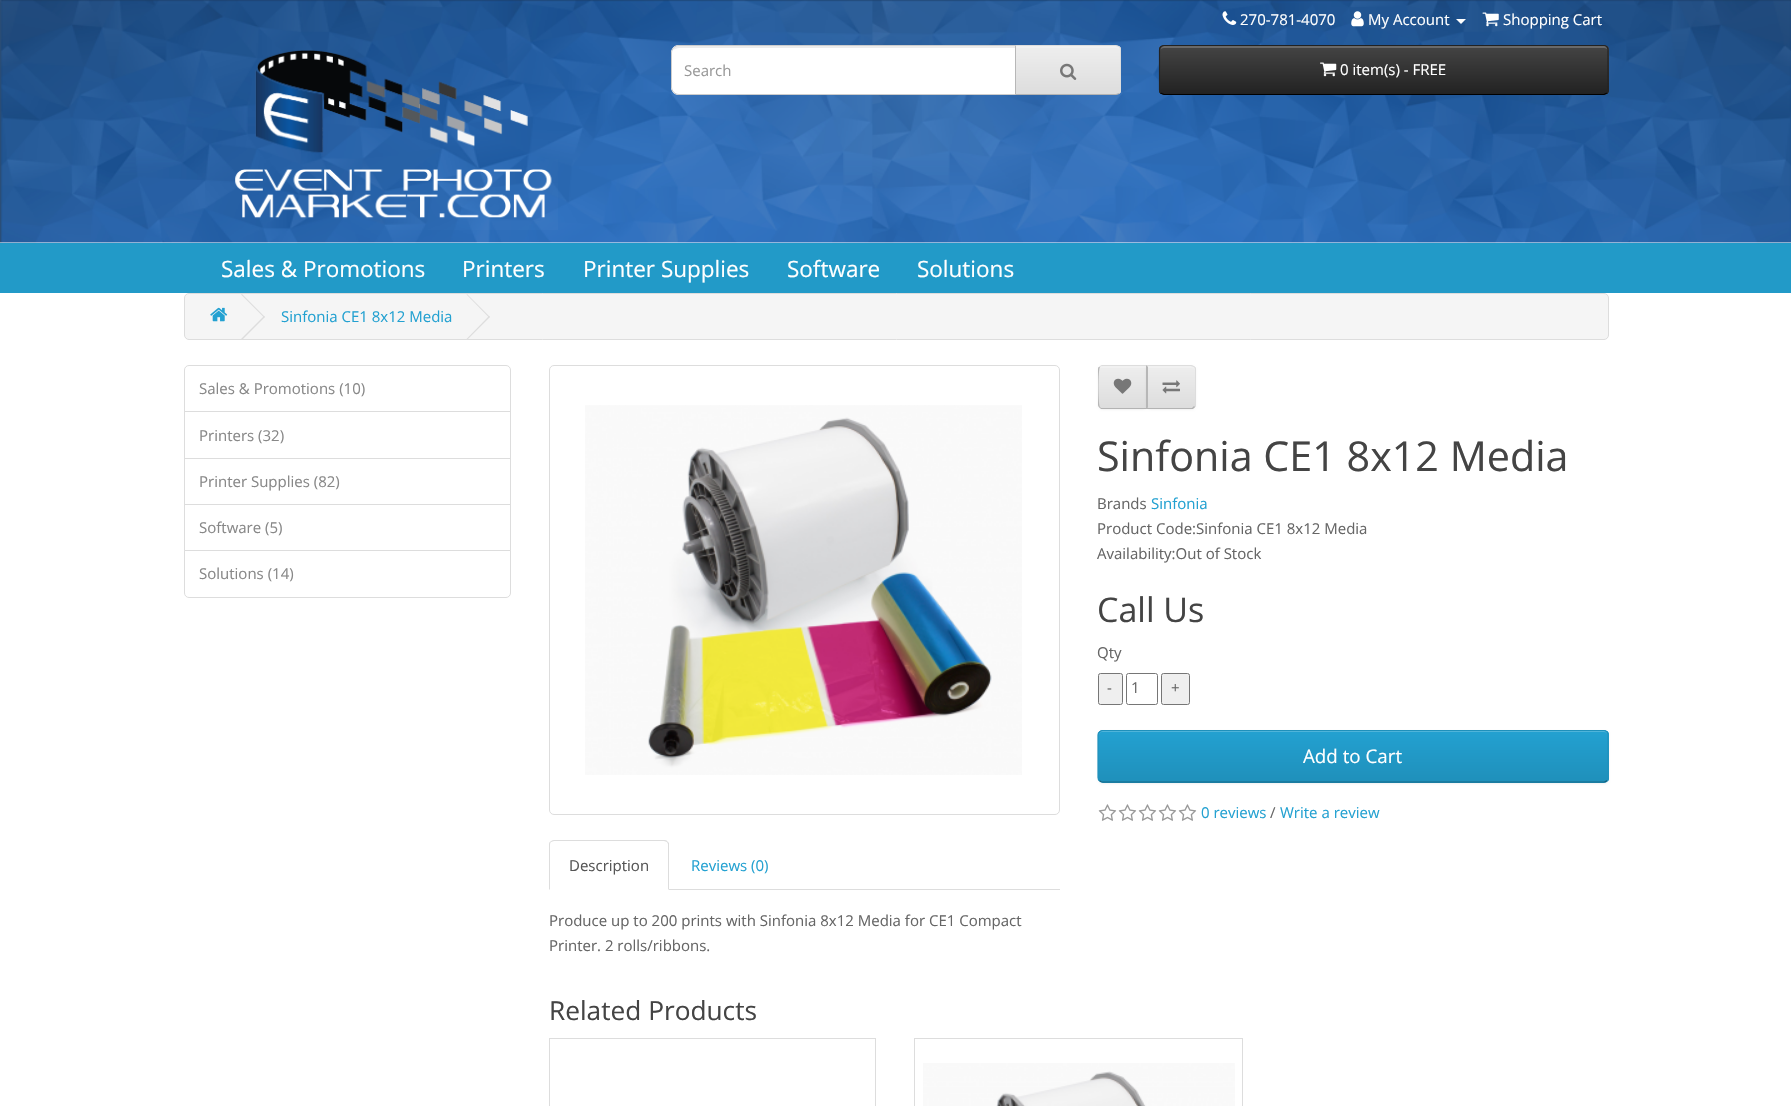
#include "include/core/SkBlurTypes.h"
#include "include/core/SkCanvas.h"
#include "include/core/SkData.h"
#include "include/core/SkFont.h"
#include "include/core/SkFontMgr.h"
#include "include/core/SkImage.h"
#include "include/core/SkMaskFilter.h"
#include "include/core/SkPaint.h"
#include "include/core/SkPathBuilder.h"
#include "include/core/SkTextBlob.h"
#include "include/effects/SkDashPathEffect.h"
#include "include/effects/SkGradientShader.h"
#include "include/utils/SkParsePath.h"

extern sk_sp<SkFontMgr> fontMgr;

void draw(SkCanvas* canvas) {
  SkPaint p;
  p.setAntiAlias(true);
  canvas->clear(SK_ColorWHITE);
  canvas->drawImageRect(SkImages::DeferredFromEncodedData(SkData::MakeFromFileName("images/1.png")), SkRect::MakeLTRB(0, 0, 1791, 243), SkSamplingOptions());
  canvas->drawImageRect(SkImages::DeferredFromEncodedData(SkData::MakeFromFileName("images/2.png")), SkRect::MakeLTRB(1222, 11, 1237, 25), SkSamplingOptions());
  canvas->drawImageRect(SkImages::DeferredFromEncodedData(SkData::MakeFromFileName("images/3.png")), SkRect::MakeLTRB(1351, 11, 1364, 27), SkSamplingOptions());
  p.setColor(SK_ColorWHITE);
  canvas->drawPath(SkPathBuilder().moveTo(1456, 19).lineTo(1466, 19).lineTo(1461, 24).close().detach(), p);
  canvas->drawImageRect(SkImages::DeferredFromEncodedData(SkData::MakeFromFileName("images/4.png")), SkRect::MakeLTRB(1482, 12, 1499, 27), SkSamplingOptions());
  canvas->drawImageRect(SkImages::DeferredFromEncodedData(SkData::MakeFromFileName("images/5.png")), SkRect::MakeLTRB(235, 50, 558, 230), SkSamplingOptions());
  canvas->drawPath(SkPathBuilder().moveTo(679, 45).lineTo(1016, 45).lineTo(1016, 95).lineTo(679, 95).cubicTo(674.5f, 95, 671, 91.5f, 671, 87).lineTo(671, 53).cubicTo(671, 48.5f, 674.5f, 45, 679, 45).close().detach(), p);
  p.setColor(SkColorSetRGB(236, 236, 236));
  canvas->drawPath(SkPathBuilder().moveTo(679, 48).lineTo(1015, 48).lineTo(1015, 46).lineTo(679, 46).cubicTo(676, 46, 674, 48, 673, 50).cubicTo(675, 49, 677, 48, 679, 48).close().detach(), p);
  p.setStyle(SkPaint::kStroke_Style);
  p.setStrokeWidth(1);
  p.setColor(SkColorSetRGB(204, 204, 204));
  canvas->drawPath(SkPathBuilder().moveTo(679, 45.5f).lineTo(1015.5f, 45.5f).lineTo(1015.5f, 94.5f).lineTo(679, 94.5f).cubicTo(675, 94.5f, 671.5f, 91, 671.5f, 87).lineTo(671.5f, 53).cubicTo(671.5f, 49, 675, 45.5f, 679, 45.5f).close().detach(), p);
  canvas->save();
  canvas->clipPath(SkPathBuilder().moveTo(1015, 45).lineTo(1116, 45).cubicTo(1119, 45, 1121, 47, 1121, 50).lineTo(1121, 90).cubicTo(1121, 93, 1119, 95, 1116, 95).lineTo(1015, 95).close().detach(), true);
  p.setStyle(SkPaint::kFill_Style);
  {
    const SkColor colors[] = {SkColorSetRGB(238, 238, 238), SkColorSetRGB(221, 221, 221)};
    const float stops[] = {0, 1};
    const SkPoint ends[] = {{1068, 46}, {1068, 94}};
    p.setShader(SkGradientShader::MakeLinear(ends, colors, stops, 2, SkTileMode::kClamp));
    p.setAlpha(255);
  }
  canvas->drawRect(SkRect::MakeLTRB(1016, 46, 1121, 94), p);
  canvas->restore();
  p.setShader(nullptr);
  p.setColor(SkColorSetRGB(241, 241, 241));
  canvas->drawPath(SkPathBuilder().moveTo(1016, 48).lineTo(1116, 48).cubicTo(1118, 48, 1120, 49, 1120, 51).lineTo(1120, 50).cubicTo(1120, 48, 1118, 46, 1116, 46).lineTo(1016, 46).close().detach(), p);
  p.setColor(SkColorSetRGB(221, 221, 221));
  canvas->drawPath(SkPathBuilder().moveTo(1015, 45).lineTo(1016, 46).lineTo(1116, 46).lineTo(1119, 47).lineTo(1120, 47).cubicTo(1119, 46, 1118, 45, 1116, 45).close().detach(), p);
  canvas->drawPath(SkPathBuilder().moveTo(1120, 47).cubicTo(1121, 47, 1121, 49, 1121, 50).lineTo(1121, 90).cubicTo(1121, 91, 1121, 93, 1120, 93).lineTo(1119, 93).cubicTo(1120, 92, 1120, 91, 1120, 90).lineTo(1120, 50).cubicTo(1120, 49, 1120, 48, 1119, 47).close().detach(), p);
  p.setColor(SkColorSetRGB(179, 179, 179));
  canvas->drawPath(SkPathBuilder().moveTo(1116, 95).cubicTo(1118, 95, 1119, 94, 1120, 93).lineTo(1119, 93).lineTo(1116, 94).lineTo(1016, 94).lineTo(1015, 95).close().detach(), p);
  p.setColor(SkColorSetRGB(183, 183, 183));
  canvas->drawPath(SkPathBuilder().moveTo(1015, 45).lineTo(1015, 95).lineTo(1016, 94).lineTo(1016, 46).close().detach(), p);
  canvas->drawImageRect(SkImages::DeferredFromEncodedData(SkData::MakeFromFileName("images/6.png")), SkRect::MakeLTRB(1060, 63, 1077, 80), SkSamplingOptions());
  p.setColor(SkColorSetRGB(54, 54, 54));
  canvas->drawRoundRect(SkRect::MakeLTRB(1159, 45, 1609, 95), 5, 5, p);
  canvas->save();
  canvas->clipPath(SkPathBuilder().moveTo(1164, 45).lineTo(1604, 45).cubicTo(1607, 45, 1609, 47, 1609, 50).lineTo(1609, 90).cubicTo(1609, 93, 1607, 95, 1604, 95).lineTo(1164, 95).cubicTo(1161, 95, 1159, 93, 1159, 90).lineTo(1159, 50).cubicTo(1159, 47, 1161, 45, 1164, 45).close().detach(), true);
  {
    const SkColor colors[] = {SkColorSetRGB(68, 68, 68), SkColorSetRGB(34, 34, 34)};
    const float stops[] = {0, 1};
    const SkPoint ends[] = {{1384, 46}, {1384, 94}};
    p.setShader(SkGradientShader::MakeLinear(ends, colors, stops, 2, SkTileMode::kClamp));
    p.setAlpha(255);
  }
  canvas->drawRect(SkRect::MakeLTRB(1159, 46, 1609, 94), p);
  canvas->restore();
  p.setShader(nullptr);
  p.setColor(SkColorSetRGB(105, 105, 105));
  canvas->drawPath(SkPathBuilder().moveTo(1164, 48).lineTo(1604, 48).cubicTo(1606, 48, 1608, 49, 1608, 51).cubicTo(1608, 48, 1607, 46, 1604, 46).lineTo(1164, 46).lineTo(1162, 47).lineTo(1161, 48).lineTo(1160, 51).cubicTo(1160, 49, 1162, 48, 1164, 48).close().detach(), p);
  p.setStyle(SkPaint::kStroke_Style);
  p.setStrokeWidth(1.2f);
  p.setColor(SK_ColorBLACK);
  canvas->drawPath(SkPathBuilder().moveTo(1607, 93).lineTo(1604, 94.5f).lineTo(1164, 94.5f).lineTo(1160.5f, 93).detach(), p);
  p.setColor(SkColorSetRGB(34, 34, 34));
  canvas->drawPath(SkPathBuilder().moveTo(1160.5f, 93).cubicTo(1160, 92.5f, 1159.5f, 91, 1159.5f, 90).lineTo(1159.5f, 50).cubicTo(1159.5f, 49, 1160, 47.5f, 1160.5f, 47).cubicTo(1161.5f, 46, 1162.5f, 45.5f, 1164, 45.5f).lineTo(1604, 45.5f).cubicTo(1605, 45.5f, 1606, 46, 1607, 47).cubicTo(1607.5f, 47.5f, 1608, 49, 1608, 50).lineTo(1608, 90).cubicTo(1608, 91, 1607.5f, 92.5f, 1607, 93).detach(), p);
  canvas->drawImageRect(SkImages::DeferredFromEncodedData(SkData::MakeFromFileName("images/7.png")), SkRect::MakeLTRB(1320, 62, 1337, 77), SkSamplingOptions());
  p.setStyle(SkPaint::kFill_Style);
  p.setColor(SkColorSetRGB(34, 154, 200));
  canvas->drawRect(SkRect::MakeLTRB(0, 243, 1791, 293), p);
  p.setColor(SkColorSetRGB(245, 245, 245));
  canvas->drawRoundRect(SkRect::MakeLTRB(184.5f, 293.5f, 1608.5f, 339.5f), 4.5f, 4.5f, p);
  p.setStyle(SkPaint::kStroke_Style);
  p.setStrokeWidth(1);
  p.setColor(SkColorSetRGB(221, 221, 221));
  canvas->drawRoundRect(SkRect::MakeLTRB(184.5f, 293.5f, 1608.5f, 339.5f), 4.5f, 4.5f, p);
  canvas->drawImageRect(SkImages::DeferredFromEncodedData(SkData::MakeFromFileName("images/8.png")), SkRect::MakeLTRB(210, 307, 228, 322), SkSamplingOptions());
  p.setStyle(SkPaint::kFill_Style);
  canvas->drawPath(SkPathBuilder().moveTo(241, 294.5f).lineTo(242, 294).lineTo(265, 317).lineTo(264, 317.5f).close().detach(), p);
  canvas->drawPath(SkPathBuilder().moveTo(241, 339).lineTo(264, 316).lineTo(265, 317).lineTo(242, 340).close().detach(), p);
  canvas->drawPath(SkPathBuilder().moveTo(466.5f, 294.5f).lineTo(467, 294).lineTo(490, 317).lineTo(489, 317.5f).close().detach(), p);
  canvas->drawPath(SkPathBuilder().moveTo(466.5f, 339).lineTo(489, 316).lineTo(490, 317).lineTo(467, 340).close().detach(), p);
  p.setStyle(SkPaint::kStroke_Style);
  canvas->drawPath(SkPathBuilder().moveTo(189, 365.5f).lineTo(506, 365.5f).cubicTo(508.5f, 365.5f, 510.5f, 367.5f, 510.5f, 370).lineTo(510.5f, 412.5f).lineTo(184.5f, 412.5f).lineTo(184.5f, 370).cubicTo(184.5f, 367.5f, 186.5f, 365.5f, 189, 365.5f).close().detach(), p);
  p.setStyle(SkPaint::kFill_Style);
  p.setColor(SK_ColorWHITE);
  canvas->drawRect(SkRect::MakeLTRB(185, 412, 510, 413), p);
  p.setStyle(SkPaint::kStroke_Style);
  p.setColor(SkColorSetRGB(221, 221, 221));
  canvas->drawRect(SkRect::MakeLTRB(184.5f, 411.5f, 510.5f, 458.5f), p);
  canvas->drawRect(SkRect::MakeLTRB(184.5f, 458.5f, 510.5f, 504.5f), p);
  canvas->drawRect(SkRect::MakeLTRB(184.5f, 504.5f, 510.5f, 550.5f), p);
  p.setStyle(SkPaint::kFill_Style);
  p.setColor(SK_ColorWHITE);
  canvas->drawPath(SkPathBuilder().moveTo(184.5f, 550.5f).lineTo(510.5f, 550.5f).lineTo(510.5f, 593).cubicTo(510.5f, 595.5f, 508.5f, 597.5f, 506, 597.5f).lineTo(189, 597.5f).cubicTo(186.5f, 597.5f, 184.5f, 595.5f, 184.5f, 593).close().detach(), p);
  p.setStyle(SkPaint::kStroke_Style);
  p.setColor(SkColorSetRGB(221, 221, 221));
  canvas->drawPath(SkPathBuilder().moveTo(184.5f, 550.5f).lineTo(510.5f, 550.5f).lineTo(510.5f, 593).cubicTo(510.5f, 595.5f, 508.5f, 597.5f, 506, 597.5f).lineTo(189, 597.5f).cubicTo(186.5f, 597.5f, 184.5f, 595.5f, 184.5f, 593).close().detach(), p);
  p.setStyle(SkPaint::kFill_Style);
  p.setColor(SkColorSetARGB(13, 0, 0, 0));
  p.setMaskFilter(SkMaskFilter::MakeBlur(kNormal_SkBlurStyle, 1));
  canvas->drawRoundRect(SkRect::MakeLTRB(1098, 366, 1148, 410), 5, 5, p);
  p.setMaskFilter(nullptr);
  canvas->save();
  canvas->clipPath(SkPathBuilder().moveTo(1103, 365).lineTo(1148, 365).lineTo(1148, 409).lineTo(1103, 409).cubicTo(1100, 409, 1098, 407, 1098, 404).lineTo(1098, 370).cubicTo(1098, 367, 1100, 365, 1103, 365).close().detach(), true);
  {
    const SkColor colors[] = {SkColorSetRGB(238, 238, 238), SkColorSetRGB(221, 221, 221)};
    const float stops[] = {0, 1};
    const SkPoint ends[] = {{1123, 366}, {1123, 408}};
    p.setShader(SkGradientShader::MakeLinear(ends, colors, stops, 2, SkTileMode::kClamp));
    p.setAlpha(255);
  }
  canvas->drawRect(SkRect::MakeLTRB(1098, 366, 1146, 408), p);
  canvas->restore();
  p.setShader(nullptr);
  p.setColor(SkColorSetRGB(241, 241, 241));
  canvas->drawPath(SkPathBuilder().moveTo(1102, 368).lineTo(1146, 368).lineTo(1146, 366).lineTo(1103, 366).cubicTo(1101, 366, 1099, 368, 1099, 370).lineTo(1099, 371).cubicTo(1099, 369, 1100, 368, 1102, 368).close().detach(), p);
  p.setColor(SkColorSetRGB(221, 221, 221));
  canvas->drawPath(SkPathBuilder().moveTo(1102, 365).cubicTo(1101, 365, 1100, 366, 1099, 367).lineTo(1100, 367).lineTo(1101, 366).lineTo(1146, 366).lineTo(1148, 365).close().detach(), p);
  p.setColor(SkColorSetRGB(179, 179, 179));
  canvas->drawPath(SkPathBuilder().moveTo(1148, 409).lineTo(1101, 409).lineTo(1099, 407).lineTo(1100, 407).lineTo(1101, 408).lineTo(1146, 408).lineTo(1146, 407).close().detach(), p);
  p.setColor(SkColorSetRGB(183, 183, 183));
  canvas->drawPath(SkPathBuilder().moveTo(1099, 367).cubicTo(1098, 367, 1098, 369, 1098, 370).lineTo(1098, 404).cubicTo(1098, 405, 1098, 406, 1099, 407).lineTo(1100, 407).cubicTo(1098, 404, 1098, 369, 1100, 367).close().detach(), p);
  canvas->drawImageRect(SkImages::DeferredFromEncodedData(SkData::MakeFromFileName("images/9.png")), SkRect::MakeLTRB(1113, 378, 1132, 394), SkSamplingOptions());
  p.setColor(SkColorSetARGB(13, 0, 0, 0));
  p.setMaskFilter(SkMaskFilter::MakeBlur(kNormal_SkBlurStyle, 1));
  canvas->drawRoundRect(SkRect::MakeLTRB(1146, 366, 1196, 410), 5, 5, p);
  p.setMaskFilter(nullptr);
  canvas->save();
  canvas->clipPath(SkPathBuilder().moveTo(1146, 365).lineTo(1191, 365).cubicTo(1194, 365, 1196, 367, 1196, 370).lineTo(1196, 404).cubicTo(1196, 407, 1194, 409, 1191, 409).lineTo(1146, 409).close().detach(), true);
  {
    const SkColor colors[] = {SkColorSetRGB(238, 238, 238), SkColorSetRGB(221, 221, 221)};
    const float stops[] = {0, 1};
    const SkPoint ends[] = {{1171, 366}, {1171, 408}};
    p.setShader(SkGradientShader::MakeLinear(ends, colors, stops, 2, SkTileMode::kClamp));
    p.setAlpha(255);
  }
  canvas->drawRect(SkRect::MakeLTRB(1147, 366, 1196, 408), p);
  canvas->restore();
  p.setShader(nullptr);
  p.setColor(SkColorSetRGB(241, 241, 241));
  canvas->drawPath(SkPathBuilder().moveTo(1148, 368).lineTo(1191, 368).cubicTo(1193, 368, 1195, 369, 1195, 371).lineTo(1195, 370).cubicTo(1195, 368, 1193, 366, 1191, 366).lineTo(1148, 366).close().detach(), p);
  p.setColor(SkColorSetRGB(221, 221, 221));
  canvas->drawPath(SkPathBuilder().moveTo(1148, 366).lineTo(1191, 366).cubicTo(1192, 366, 1193, 367, 1194, 367).lineTo(1195, 367).cubicTo(1194, 366, 1193, 365, 1191, 365).lineTo(1146, 365).lineTo(1148, 367).close().moveTo(1195, 367).cubicTo(1196, 367, 1196, 369, 1196, 370).lineTo(1196, 404).cubicTo(1196, 405, 1196, 407, 1195, 407).lineTo(1194, 406).lineTo(1195, 404).lineTo(1195, 370).cubicTo(1195, 369, 1195, 368, 1194, 367).close().detach(), p);
  p.setColor(SkColorSetRGB(179, 179, 179));
  canvas->drawPath(SkPathBuilder().moveTo(1195, 407).lineTo(1193, 409).lineTo(1146, 409).lineTo(1148, 407).lineTo(1148, 408).lineTo(1192, 408).lineTo(1194, 406).close().detach(), p);
  p.setColor(SkColorSetRGB(183, 183, 183));
  canvas->drawPath(SkPathBuilder().moveTo(1146, 409).lineTo(1148, 407).lineTo(1148, 367).lineTo(1146, 365).close().detach(), p);
  canvas->drawImageRect(SkImages::DeferredFromEncodedData(SkData::MakeFromFileName("images/10.png")), SkRect::MakeLTRB(1162, 380, 1180, 394), SkSamplingOptions());
  p.setColor(SkColorSetRGB(239, 239, 239));
  canvas->drawRoundRect(SkRect::MakeLTRB(1098.5f, 673.5f, 1122.5f, 704.5f), 2, 2, p);
  p.setStyle(SkPaint::kStroke_Style);
  p.setColor(SkColorSetRGB(118, 118, 118));
  canvas->drawRoundRect(SkRect::MakeLTRB(1098.5f, 673.5f, 1122.5f, 704.5f), 2, 2, p);
  canvas->drawRoundRect(SkRect::MakeLTRB(1126.5f, 673.5f, 1157.5f, 704.5f), 2, 2, p);
  p.setStyle(SkPaint::kFill_Style);
  p.setColor(SkColorSetRGB(239, 239, 239));
  canvas->drawRoundRect(SkRect::MakeLTRB(1161.5f, 673.5f, 1189.5f, 704.5f), 2, 2, p);
  p.setStyle(SkPaint::kStroke_Style);
  p.setColor(SkColorSetRGB(118, 118, 118));
  canvas->drawRoundRect(SkRect::MakeLTRB(1161.5f, 673.5f, 1189.5f, 704.5f), 2, 2, p);
  p.setStyle(SkPaint::kFill_Style);
  p.setColor(SkColorSetARGB(13, 0, 0, 0));
  p.setMaskFilter(SkMaskFilter::MakeBlur(kNormal_SkBlurStyle, 1));
  canvas->drawRoundRect(SkRect::MakeLTRB(1098, 731, 1609, 784), 5, 5, p);
  p.setMaskFilter(nullptr);
  p.setColor(SkColorSetRGB(34, 154, 200));
  canvas->drawRoundRect(SkRect::MakeLTRB(1098, 730, 1609, 783), 5, 5, p);
  canvas->save();
  canvas->clipPath(SkPathBuilder().moveTo(1103, 730).lineTo(1604, 730).cubicTo(1607, 730, 1609, 732, 1609, 735).lineTo(1609, 778).cubicTo(1609, 781, 1607, 783, 1604, 783).lineTo(1103, 783).cubicTo(1100, 783, 1098, 781, 1098, 778).lineTo(1098, 735).cubicTo(1098, 732, 1100, 730, 1103, 730).close().detach(), true);
  {
    const SkColor colors[] = {SkColorSetRGB(35, 161, 209), SkColorSetRGB(31, 144, 187)};
    const float stops[] = {0, 1};
    const SkPoint ends[] = {{1353, 731}, {1353, 781}};
    p.setShader(SkGradientShader::MakeLinear(ends, colors, stops, 2, SkTileMode::kClamp));
    p.setAlpha(255);
  }
  canvas->drawRect(SkRect::MakeLTRB(1098, 731, 1609, 781), p);
  canvas->restore();
  p.setShader(nullptr);
  p.setColor(SkColorSetRGB(79, 180, 218));
  canvas->drawPath(SkPathBuilder().moveTo(1102, 732).lineTo(1604, 732).cubicTo(1606, 732, 1608, 734, 1608, 736).lineTo(1608, 735).cubicTo(1608, 733, 1606, 731, 1604, 731).lineTo(1103, 731).cubicTo(1101, 731, 1099, 733, 1099, 735).lineTo(1099, 736).cubicTo(1099, 734, 1100, 732, 1102, 732).close().detach(), p);
  p.setStyle(SkPaint::kStroke_Style);
  p.setStrokeWidth(1.2f);
  p.setColor(SkColorSetRGB(20, 94, 122));
  canvas->drawPath(SkPathBuilder().moveTo(1607, 780.5f).cubicTo(1606, 781.5f, 1605, 782, 1604, 782).lineTo(1102.5f, 782).cubicTo(1101.5f, 782, 1100, 781.5f, 1099.5f, 780.5f).detach(), p);
  p.setColor(SkColorSetRGB(31, 144, 187));
  canvas->drawPath(SkPathBuilder().moveTo(1099.5f, 780.5f).cubicTo(1098.5f, 780, 1098, 778.5f, 1098, 777.5f).lineTo(1098, 735).cubicTo(1098, 734, 1098.5f, 732.5f, 1099.5f, 732).cubicTo(1100, 731, 1101.5f, 730.5f, 1102.5f, 730.5f).lineTo(1604, 730.5f).cubicTo(1605, 730.5f, 1606, 731, 1607, 732).cubicTo(1607.5f, 732.5f, 1608, 734, 1608, 735).lineTo(1608, 777.5f).cubicTo(1608, 778.5f, 1607.5f, 780, 1607, 780.5f).detach(), p);
  canvas->drawImageRect(SkImages::DeferredFromEncodedData(SkData::MakeFromFileName("images/11.png")), SkRect::MakeLTRB(1098, 804, 1117, 821), SkSamplingOptions());
  canvas->drawImageRect(SkImages::DeferredFromEncodedData(SkData::MakeFromFileName("images/11.png")), SkRect::MakeLTRB(1118, 804, 1137, 821), SkSamplingOptions());
  canvas->drawImageRect(SkImages::DeferredFromEncodedData(SkData::MakeFromFileName("images/11.png")), SkRect::MakeLTRB(1138, 804, 1157, 821), SkSamplingOptions());
  canvas->drawImageRect(SkImages::DeferredFromEncodedData(SkData::MakeFromFileName("images/11.png")), SkRect::MakeLTRB(1158, 804, 1177, 821), SkSamplingOptions());
  canvas->drawImageRect(SkImages::DeferredFromEncodedData(SkData::MakeFromFileName("images/11.png")), SkRect::MakeLTRB(1178, 804, 1197, 821), SkSamplingOptions());
  p.setStrokeWidth(1);
  p.setColor(SkColorSetRGB(221, 221, 221));
  canvas->drawRoundRect(SkRect::MakeLTRB(549.5f, 365.5f, 1059.5f, 814.5f), 4.5f, 4.5f, p);
  canvas->drawImageRect(SkImages::DeferredFromEncodedData(SkData::MakeFromFileName("images/12.png")), SkRect::MakeLTRB(585, 405, 1022, 775), SkSamplingOptions());
  p.setStyle(SkPaint::kFill_Style);
  canvas->drawRect(SkRect::MakeLTRB(669, 889, 1060, 890), p);
  canvas->drawPath(SkPathBuilder().moveTo(554, 840).cubicTo(552, 840, 551, 841, 550, 842).lineTo(551, 842).lineTo(554, 841).lineTo(664, 841).lineTo(667, 842).lineTo(667, 841).cubicTo(667, 840, 665, 840, 664, 840).close().detach(), p);
  canvas->drawPath(SkPathBuilder().moveTo(669, 843).lineTo(669, 890).lineTo(668, 889).lineTo(668, 844).lineTo(667, 842).lineTo(667, 841).close().detach(), p);
  canvas->drawPath(SkPathBuilder().moveTo(550, 842).cubicTo(549, 842, 549, 844, 549, 845).lineTo(549, 890).lineTo(550, 889).lineTo(550, 845).cubicTo(550, 844, 550, 843, 551, 842).close().detach(), p);
  p.setStyle(SkPaint::kStroke_Style);
  canvas->drawRect(SkRect::MakeLTRB(549.5f, 1038.5f, 875.5f, 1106.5f), p);
  canvas->drawRect(SkRect::MakeLTRB(914.5f, 1038.5f, 1242.5f, 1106.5f), p);
  canvas->drawImageRect(SkImages::DeferredFromEncodedData(SkData::MakeFromFileName("images/13.png")), SkRect::MakeLTRB(923, 1063, 1235, 1106), SkSamplingOptions());
  SkFont font1(fontMgr->matchFamilyStyle("Open Sans", SkFontStyle::Normal()), 15);
  font1.setSubpixel(true);
  p.setStyle(SkPaint::kFill_Style);
  p.setColor(SK_ColorWHITE);
  canvas->drawString("270-781-4070", 1240, 25, font1, p);
  canvas->drawString("My Account", 1368, 25, font1, p);
  canvas->drawString("Shopping Cart", 1503, 25, font1, p);
  p.setColor(SkColorSetRGB(153, 153, 153));
  canvas->drawString("Search", 684, 76, font1, p);
  p.setColor(SK_ColorWHITE);
  canvas->drawString("0 item(s) - FREE", 1340, 75, font1, p);
  SkFont font2(fontMgr->matchFamilyStyle("Open Sans", SkFontStyle::Normal()), 22.5f);
  font2.setSubpixel(true);
  canvas->drawString("Sales & Promotions", 221, 277, font2, p);
  canvas->drawString("Printers", 462, 277, font2, p);
  canvas->drawString("Printer Supplies", 583, 277, font2, p);
  canvas->drawString("Software", 787, 277, font2, p);
  canvas->drawString("Solutions", 917, 277, font2, p);
  p.setColor(SkColorSetRGB(35, 161, 209));
  canvas->drawString("Sinfonia CE1 8x12 Media", 281, 322, font1, p);
  p.setColor(SkColorSetRGB(136, 136, 136));
  canvas->drawString("Sales & Promotions (10)", 199, 394, font1, p);
  canvas->drawString("Printers (32)", 199, 441, font1, p);
  canvas->drawString("Printer Supplies (82)", 199, 487, font1, p);
  canvas->drawString("Software (5)", 199, 533, font1, p);
  canvas->drawString("Solutions (14)", 199, 579, font1, p);
  SkFont font3(fontMgr->matchFamilyStyle("Open Sans", SkFontStyle::Normal()), 41.25f);
  font3.setSubpixel(true);
  p.setColor(SkColorSetRGB(68, 68, 68));
  canvas->drawString("Sinfonia CE1 8x12 Media", 1097, 471, font3, p);
  p.setColor(SkColorSetRGB(102, 102, 102));
  canvas->drawString("Brands", 1097, 509, font1, p);
  p.setColor(SkColorSetRGB(35, 161, 209));
  canvas->drawString("Sinfonia", 1151, 509, font1, p);
  p.setColor(SkColorSetRGB(102, 102, 102));
  canvas->drawString("Product Code:Sinfonia CE1 8x12 Media", 1097, 534, font1, p);
  canvas->drawString("Availability:Out of Stock", 1097, 559, font1, p);
  SkFont font4(fontMgr->matchFamilyStyle("Open Sans", SkFontStyle::Normal()), 34);
  font4.setSubpixel(true);
  p.setColor(SkColorSetRGB(68, 68, 68));
  canvas->drawString("Call Us", 1097, 622, font4, p);
  p.setColor(SkColorSetRGB(102, 102, 102));
  canvas->drawString("Qty", 1097, 658, font1, p);
  canvas->drawString("-", 1107, 693, font1, p);
  canvas->drawString("1", 1131, 693, font1, p);
  canvas->drawString("+", 1171, 693, font1, p);
  SkFont font5(fontMgr->matchFamilyStyle("Open Sans", SkFontStyle::Normal()), 18.75f);
  font5.setSubpixel(true);
  p.setColor(SK_ColorWHITE);
  canvas->drawString("Add to Cart", 1303, 763, font5, p);
  p.setColor(SkColorSetRGB(35, 161, 209));
  canvas->drawString("0 reviews", 1201, 818, font1, p);
  p.setColor(SkColorSetRGB(102, 102, 102));
  canvas->drawString("/", 1270, 818, font1, p);
  p.setColor(SkColorSetRGB(35, 161, 209));
  canvas->drawString("Write a review", 1280, 818, font1, p);
  p.setColor(SkColorSetRGB(85, 85, 85));
  canvas->drawString("Description", 569, 871, font1, p);
  p.setColor(SkColorSetRGB(35, 161, 209));
  canvas->drawString("Reviews (0)", 691, 871, font1, p);
  p.setColor(SkColorSetRGB(102, 102, 102));
  canvas->drawString("Produce up to 200 prints with Sinfonia 8x12 Media for CE1 Compact", 549, 926, font1, p);
  canvas->drawString("Printer. 2 rolls/ribbons.", 549, 951, font1, p);
  SkFont font6(fontMgr->matchFamilyStyle("Open Sans", SkFontStyle::Normal()), 26.25f);
  font6.setSubpixel(true);
  p.setColor(SkColorSetRGB(68, 68, 68));
  canvas->drawString("Related Products", 549, 1020, font6, p);
}
